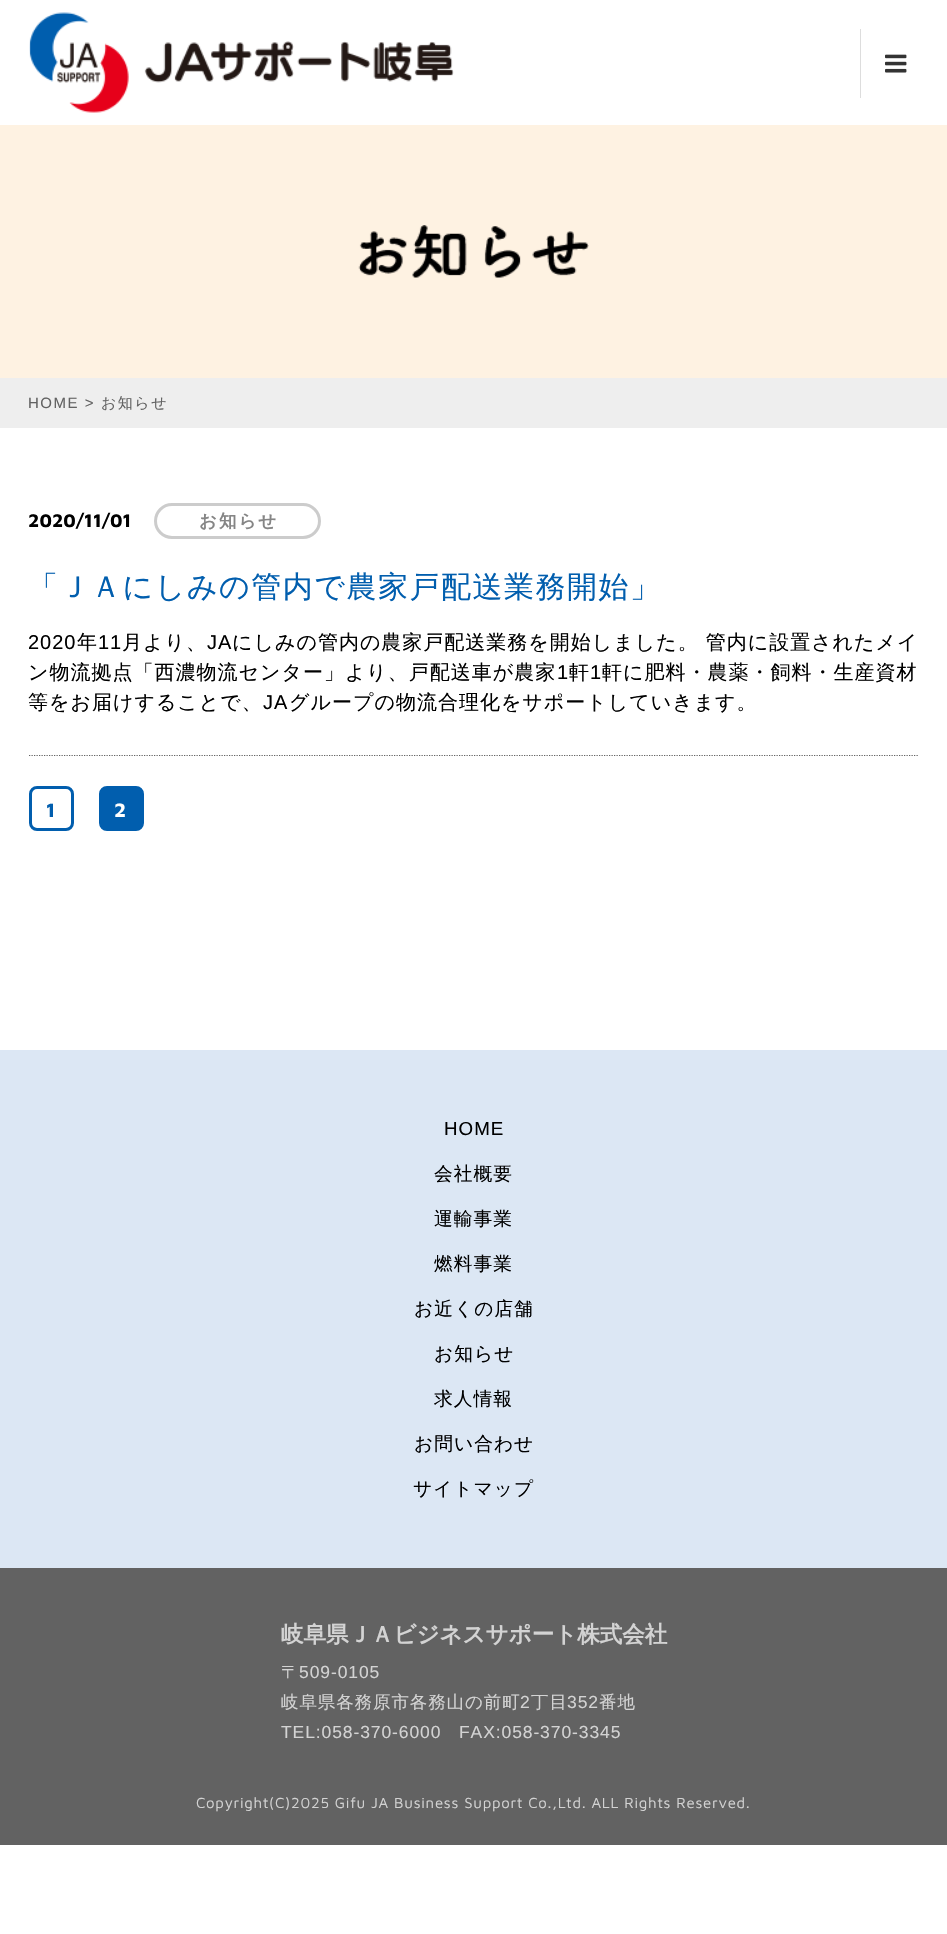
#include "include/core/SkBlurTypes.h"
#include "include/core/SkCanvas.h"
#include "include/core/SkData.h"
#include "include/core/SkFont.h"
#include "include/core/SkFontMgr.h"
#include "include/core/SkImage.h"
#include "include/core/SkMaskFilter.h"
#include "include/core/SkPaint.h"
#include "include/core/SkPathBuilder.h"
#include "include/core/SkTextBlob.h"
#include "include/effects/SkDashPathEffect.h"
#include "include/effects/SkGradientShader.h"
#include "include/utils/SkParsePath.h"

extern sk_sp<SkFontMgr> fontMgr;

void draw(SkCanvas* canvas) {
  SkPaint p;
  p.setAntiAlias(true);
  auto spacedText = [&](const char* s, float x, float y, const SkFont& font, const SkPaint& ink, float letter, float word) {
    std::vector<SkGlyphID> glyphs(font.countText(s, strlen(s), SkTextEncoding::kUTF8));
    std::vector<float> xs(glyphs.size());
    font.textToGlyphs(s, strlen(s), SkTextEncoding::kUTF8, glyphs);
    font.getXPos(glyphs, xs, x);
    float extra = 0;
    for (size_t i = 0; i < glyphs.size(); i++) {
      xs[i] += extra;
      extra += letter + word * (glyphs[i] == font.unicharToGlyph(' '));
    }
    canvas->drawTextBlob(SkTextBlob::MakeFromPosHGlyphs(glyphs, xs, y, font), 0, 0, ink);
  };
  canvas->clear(SK_ColorWHITE);
  canvas->drawImageRect(SkImages::DeferredFromEncodedData(SkData::MakeFromFileName("images/1.png")), SkRect::MakeLTRB(29, 12, 454, 113), SkSamplingOptions());
  p.setColor(SkColorSetRGB(221, 221, 221));
  canvas->drawRect(SkRect::MakeLTRB(860, 29, 861, 98), p);
  canvas->drawImageRect(SkImages::DeferredFromEncodedData(SkData::MakeFromFileName("images/2.png")), SkRect::MakeLTRB(885, 54, 907, 73), SkSamplingOptions());
  p.setColor(SkColorSetRGB(254, 242, 226));
  canvas->drawRect(SkRect::MakeLTRB(0, 125, 947, 378), p);
  canvas->drawImageRect(SkImages::DeferredFromEncodedData(SkData::MakeFromFileName("images/3.png")), SkRect::MakeLTRB(358, 225, 589, 278), SkSamplingOptions());
  p.setColor(SkColorSetRGB(238, 238, 238));
  canvas->drawRect(SkRect::MakeLTRB(0, 378, 947, 428), p);
  p.setStyle(SkPaint::kStroke_Style);
  p.setStrokeWidth(1.2f);
  p.setColor(SkColorSetRGB(98, 98, 98));
  p.setPathEffect(SkDashPathEffect::Make({{1.25f, 1.25f}}, 0));
  canvas->drawPath(SkPathBuilder().moveTo(29, 755.5f).lineTo(919, 755.5f).detach(), p);
  p.setPathEffect(nullptr);
  p.setStrokeWidth(3);
  p.setColor(SkColorSetRGB(204, 204, 204));
  canvas->drawRoundRect(SkRect::MakeLTRB(155.5f, 504.5f, 319.5f, 537.5f), 16.5f, 16.5f, p);
  p.setColor(SkColorSetRGB(1, 94, 174));
  canvas->drawRoundRect(SkRect::MakeLTRB(30.5f, 787.5f, 72.5f, 829.5f), 6.5f, 6.5f, p);
  p.setStyle(SkPaint::kFill_Style);
  canvas->drawRoundRect(SkRect::MakeLTRB(100.5f, 787.5f, 142.5f, 829.5f), 6.5f, 6.5f, p);
  p.setStyle(SkPaint::kStroke_Style);
  canvas->drawRoundRect(SkRect::MakeLTRB(100.5f, 787.5f, 142.5f, 829.5f), 6.5f, 6.5f, p);
  p.setStyle(SkPaint::kFill_Style);
  p.setColor(SkColorSetRGB(220, 231, 244));
  canvas->drawRect(SkRect::MakeLTRB(0, 1050, 947, 1568), p);
  p.setColor(SkColorSetRGB(98, 98, 98));
  canvas->drawRect(SkRect::MakeLTRB(0, 1568, 947, 1845), p);
  SkFont font1(fontMgr->matchFamilyStyle("Liberation Sans", SkFontStyle::Normal()), 15);
  font1.setSubpixel(true);
  spacedText("HOME >", 28, 408, font1, p, 1.5f, 0);
  SkFont font2(fontMgr->matchFamilyStyle("WenQuanYi Zen Hei", SkFontStyle(500, SkFontStyle::kNormal_Width, SkFontStyle::kUpright_Slant)), 15);
  font2.setSubpixel(true);
  spacedText("お知らせ", 101, 408, font2, p, 1.5f, 0);
  SkFont font3(fontMgr->matchFamilyStyle("Maven Pro", SkFontStyle::Bold()), 18.75f);
  font3.setSubpixel(true);
  p.setColor(SK_ColorBLACK);
  canvas->drawString("2020/11/01", 28, 527, font3, p);
  SkFont font4(fontMgr->matchFamilyStyle("WenQuanYi Zen Hei", SkFontStyle::Bold()), 17.5f);
  font4.setSubpixel(true);
  p.setColor(SkColorSetRGB(133, 133, 133));
  spacedText("お知らせ", 199, 527, font4, p, 2, 0);
  SkFont font5(fontMgr->matchFamilyStyle("WenQuanYi Zen Hei", SkFontStyle(500, SkFontStyle::kNormal_Width, SkFontStyle::kUpright_Slant)), 30);
  font5.setSubpixel(true);
  p.setColor(SkColorSetRGB(1, 94, 174));
  spacedText("「ＪＡにしみの管内で農家戸配送業務開始」", 28, 597, font5, p, 1.5f, 0);
  SkFont font6(fontMgr->matchFamilyStyle("Liberation Sans", SkFontStyle::Normal()), 20);
  font6.setSubpixel(true);
  p.setColor(SK_ColorBLACK);
  spacedText("2020", 28, 649, font6, p, 1, 0);
  SkFont font7(fontMgr->matchFamilyStyle("WenQuanYi Zen Hei", SkFontStyle(500, SkFontStyle::kNormal_Width, SkFontStyle::kUpright_Slant)), 20);
  font7.setSubpixel(true);
  spacedText("年", 77, 649, font7, p, 1, 0);
  spacedText("11", 98, 649, font6, p, 1, 0);
  spacedText("月より、", 122, 649, font7, p, 1, 0);
  spacedText("JA", 207, 649, font6, p, 1, 0);
  spacedText("にしみの管内の農家戸配送業務を開始しました。 管内に設置されたメイ", 232, 649, font7, p, 1, 0);
  spacedText("ン物流拠点「西濃物流センター」より、戸配送車が農家", 28, 679, font7, p, 1, 0);
  spacedText("1", 557, 679, font6, p, 1, 0);
  spacedText("軒", 569, 679, font7, p, 1, 0);
  spacedText("1", 590, 679, font6, p, 1, 0);
  spacedText("軒に肥料・農薬・飼料・生産資材", 602, 679, font7, p, 1, 0);
  spacedText("等をお届けすることで、", 28, 709, font7, p, 1, 0);
  spacedText("JA", 263, 709, font6, p, 1, 0);
  spacedText("グループの物流合理化をサポートしていきます。", 289, 709, font7, p, 1, 0);
  SkFont font8(fontMgr->matchFamilyStyle("Maven Pro", SkFontStyle::Bold()), 20);
  font8.setSubpixel(true);
  p.setColor(SkColorSetRGB(1, 94, 174));
  spacedText("1", 46, 817, font8, p, 1, 0);
  p.setColor(SK_ColorWHITE);
  spacedText("2", 114, 817, font8, p, 1, 0);
  SkFont font9(fontMgr->matchFamilyStyle("Liberation Sans", SkFontStyle::Normal()), 18.75f);
  font9.setSubpixel(true);
  p.setColor(SK_ColorBLACK);
  spacedText("HOME", 444, 1135, font9, p, 1, 0);
  SkFont font10(fontMgr->matchFamilyStyle("WenQuanYi Zen Hei", SkFontStyle(500, SkFontStyle::kNormal_Width, SkFontStyle::kUpright_Slant)), 18.75f);
  font10.setSubpixel(true);
  spacedText("会社概要", 434, 1180, font10, p, 1, 0);
  spacedText("運輸事業", 434, 1225, font10, p, 1, 0);
  spacedText("燃料事業", 434, 1270, font10, p, 1, 0);
  spacedText("お近くの店舗", 414, 1315, font10, p, 1, 0);
  spacedText("お知らせ", 434, 1360, font10, p, 1, 0);
  spacedText("求人情報", 434, 1405, font10, p, 1, 0);
  spacedText("お問い合わせ", 414, 1450, font10, p, 1, 0);
  spacedText("サイトマップ", 413, 1495, font10, p, 1, 0);
  SkFont font11(fontMgr->matchFamilyStyle("WenQuanYi Zen Hei", SkFontStyle::Bold()), 22.5f);
  font11.setSubpixel(true);
  p.setColor(SkColorSetRGB(211, 211, 211));
  canvas->drawString("岐阜県ＪＡビジネスサポート株式会社", 281, 1642, font11, p);
  SkFont font12(fontMgr->matchFamilyStyle("WenQuanYi Zen Hei", SkFontStyle(500, SkFontStyle::kNormal_Width, SkFontStyle::kUpright_Slant)), 17.5f);
  font12.setSubpixel(true);
  spacedText("〒", 281, 1678, font12, p, 0.9f, 0);
  SkFont font13(fontMgr->matchFamilyStyle("Liberation Sans", SkFontStyle::Normal()), 17.5f);
  font13.setSubpixel(true);
  spacedText("509-0105", 299, 1678, font13, p, 0.9f, 0);
  spacedText("岐阜県各務原市各務山の前町", 281, 1708, font12, p, 0.9f, 0);
  spacedText("2", 520, 1708, font13, p, 0.9f, 0);
  spacedText("丁目", 531, 1708, font12, p, 0.9f, 0);
  spacedText("352", 567, 1708, font13, p, 0.9f, 0);
  spacedText("番地", 599, 1708, font12, p, 0.9f, 0);
  spacedText("TEL:058-370-6000", 281, 1738, font13, p, 0.9f, 0);
  spacedText("FAX:058-370-3345", 459, 1738, font13, p, 0.9f, 0);
  SkFont font14(fontMgr->matchFamilyStyle("Maven Pro", SkFontStyle::Normal()), 15);
  font14.setSubpixel(true);
  spacedText("Copyright(C)2025 Gifu JA Business Support Co.,Ltd. ALL Rights Reserved.", 196, 1808, font14, p, 0.75f, 0);
}
